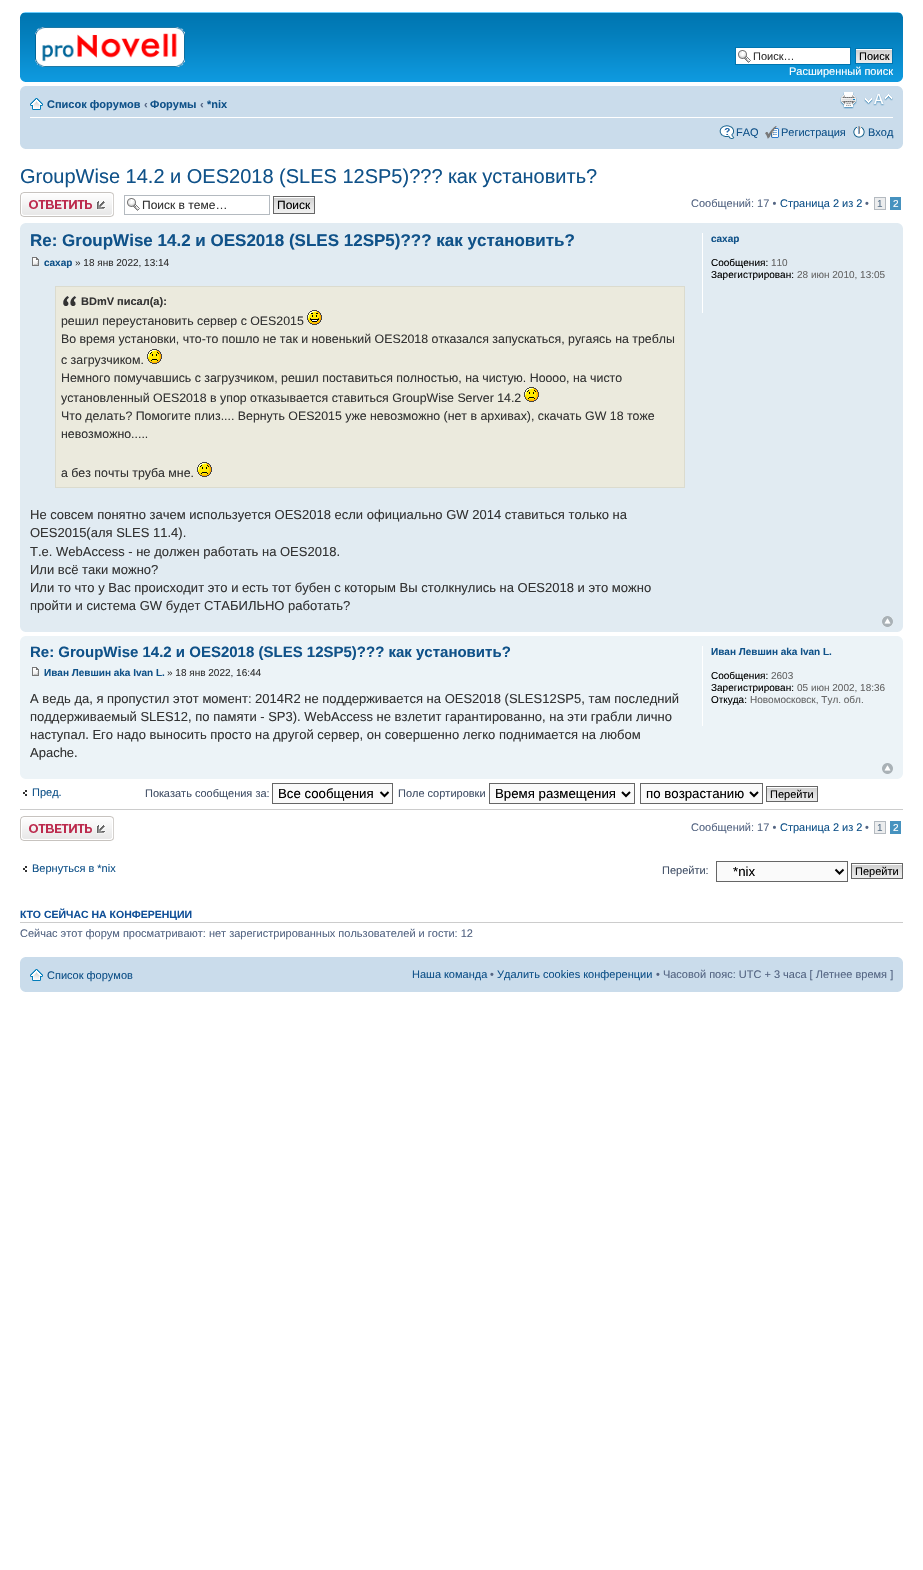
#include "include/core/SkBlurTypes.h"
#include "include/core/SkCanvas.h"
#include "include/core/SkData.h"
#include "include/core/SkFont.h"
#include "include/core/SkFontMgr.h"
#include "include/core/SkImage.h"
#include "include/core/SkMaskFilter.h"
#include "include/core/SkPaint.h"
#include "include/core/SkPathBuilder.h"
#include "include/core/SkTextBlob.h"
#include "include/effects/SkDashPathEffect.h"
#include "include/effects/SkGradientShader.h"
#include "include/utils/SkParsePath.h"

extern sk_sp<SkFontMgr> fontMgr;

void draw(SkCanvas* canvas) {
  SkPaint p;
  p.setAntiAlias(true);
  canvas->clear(SK_ColorWHITE);
  canvas->drawImageRect(SkImages::DeferredFromEncodedData(SkData::MakeFromFileName("images/1.png")), SkRect::MakeLTRB(20, 12, 903, 82), SkSamplingOptions());
  canvas->drawImageRect(SkImages::DeferredFromEncodedData(SkData::MakeFromFileName("images/2.png")), SkRect::MakeLTRB(20, 12, 25, 17), SkSamplingOptions());
  canvas->drawImageRect(SkImages::DeferredFromEncodedData(SkData::MakeFromFileName("images/3.png")), SkRect::MakeLTRB(898, 12, 903, 17), SkSamplingOptions());
  canvas->drawImageRect(SkImages::DeferredFromEncodedData(SkData::MakeFromFileName("images/4.png")), SkRect::MakeLTRB(35, 27, 185, 67), SkSamplingOptions());
  p.setColor(SK_ColorWHITE);
  canvas->drawRect(SkRect::MakeLTRB(736, 48, 850, 64), p);
  canvas->drawImageRect(SkImages::DeferredFromEncodedData(SkData::MakeFromFileName("images/5.png")), SkRect::MakeLTRB(738, 50, 751, 63), SkSamplingOptions());
  p.setStyle(SkPaint::kStroke_Style);
  p.setStrokeWidth(1);
  p.setColor(SkColorSetRGB(0, 117, 176));
  canvas->drawRect(SkRect::MakeLTRB(735.5f, 47.5f, 850.5f, 64.5f), p);
  canvas->drawImageRect(SkImages::DeferredFromEncodedData(SkData::MakeFromFileName("images/6.png")), SkRect::MakeLTRB(856, 49, 892, 63), SkSamplingOptions());
  canvas->drawRect(SkRect::MakeLTRB(855.5f, 48.5f, 892.5f, 63.5f), p);
  canvas->drawImageRect(SkImages::DeferredFromEncodedData(SkData::MakeFromFileName("images/7.png")), SkRect::MakeLTRB(20, 77, 25, 82), SkSamplingOptions());
  canvas->drawImageRect(SkImages::DeferredFromEncodedData(SkData::MakeFromFileName("images/8.png")), SkRect::MakeLTRB(898, 77, 903, 82), SkSamplingOptions());
  p.setStyle(SkPaint::kFill_Style);
  p.setColor(SkColorSetRGB(202, 220, 235));
  canvas->drawRect(SkRect::MakeLTRB(20, 86, 903, 149), p);
  canvas->drawImageRect(SkImages::DeferredFromEncodedData(SkData::MakeFromFileName("images/9.png")), SkRect::MakeLTRB(20, 86, 25, 91), SkSamplingOptions());
  canvas->drawImageRect(SkImages::DeferredFromEncodedData(SkData::MakeFromFileName("images/10.png")), SkRect::MakeLTRB(898, 86, 903, 91), SkSamplingOptions());
  p.setColor(SK_ColorWHITE);
  canvas->drawRect(SkRect::MakeLTRB(30, 117, 893, 118), p);
  canvas->drawImageRect(SkImages::DeferredFromEncodedData(SkData::MakeFromFileName("images/11.png")), SkRect::MakeLTRB(30, 98, 43, 110), SkSamplingOptions());
  canvas->drawImageRect(SkImages::DeferredFromEncodedData(SkData::MakeFromFileName("images/12.png")), SkRect::MakeLTRB(840, 92, 857, 109), SkSamplingOptions());
  canvas->drawImageRect(SkImages::DeferredFromEncodedData(SkData::MakeFromFileName("images/13.png")), SkRect::MakeLTRB(864, 94, 893, 106), SkSamplingOptions());
  canvas->drawImageRect(SkImages::DeferredFromEncodedData(SkData::MakeFromFileName("images/14.png")), SkRect::MakeLTRB(719, 125, 735, 139), SkSamplingOptions());
  canvas->drawImageRect(SkImages::DeferredFromEncodedData(SkData::MakeFromFileName("images/15.png")), SkRect::MakeLTRB(765, 126, 779, 139), SkSamplingOptions());
  canvas->drawImageRect(SkImages::DeferredFromEncodedData(SkData::MakeFromFileName("images/16.png")), SkRect::MakeLTRB(853, 126, 865, 138), SkSamplingOptions());
  canvas->drawImageRect(SkImages::DeferredFromEncodedData(SkData::MakeFromFileName("images/17.png")), SkRect::MakeLTRB(20, 144, 25, 149), SkSamplingOptions());
  canvas->drawImageRect(SkImages::DeferredFromEncodedData(SkData::MakeFromFileName("images/18.png")), SkRect::MakeLTRB(898, 144, 903, 149), SkSamplingOptions());
  canvas->drawImageRect(SkImages::DeferredFromEncodedData(SkData::MakeFromFileName("images/19.png")), SkRect::MakeLTRB(20, 192, 114, 217), SkSamplingOptions());
  canvas->drawImageRect(SkImages::DeferredFromEncodedData(SkData::MakeFromFileName("images/5.png")), SkRect::MakeLTRB(127, 198, 140, 211), SkSamplingOptions());
  p.setStyle(SkPaint::kStroke_Style);
  p.setColor(SkColorSetRGB(180, 186, 192));
  canvas->drawRect(SkRect::MakeLTRB(124.5f, 195.5f, 269.5f, 214.5f), p);
  canvas->drawImageRect(SkImages::DeferredFromEncodedData(SkData::MakeFromFileName("images/20.png")), SkRect::MakeLTRB(274, 197, 314, 213), SkSamplingOptions());
  p.setColor(SkColorSetRGB(102, 102, 102));
  canvas->drawRect(SkRect::MakeLTRB(273.5f, 196.5f, 314.5f, 213.5f), p);
  p.setStyle(SkPaint::kFill_Style);
  p.setColor(SkColorSetRGB(236, 237, 238));
  canvas->drawRect(SkRect::MakeLTRB(874.5f, 197.5f, 885.5f, 209.5f), p);
  p.setStyle(SkPaint::kStroke_Style);
  p.setColor(SkColorSetRGB(180, 186, 192));
  canvas->drawRect(SkRect::MakeLTRB(874.5f, 197.5f, 885.5f, 209.5f), p);
  p.setStyle(SkPaint::kFill_Style);
  p.setColor(SkColorSetRGB(70, 146, 191));
  canvas->drawRect(SkRect::MakeLTRB(890, 197, 901, 210), p);
  p.setColor(SkColorSetRGB(225, 235, 242));
  canvas->drawRect(SkRect::MakeLTRB(20, 223, 903, 632), p);
  canvas->drawImageRect(SkImages::DeferredFromEncodedData(SkData::MakeFromFileName("images/21.png")), SkRect::MakeLTRB(20, 223, 25, 228), SkSamplingOptions());
  canvas->drawImageRect(SkImages::DeferredFromEncodedData(SkData::MakeFromFileName("images/22.png")), SkRect::MakeLTRB(898, 223, 903, 228), SkSamplingOptions());
  canvas->drawImageRect(SkImages::DeferredFromEncodedData(SkData::MakeFromFileName("images/23.png")), SkRect::MakeLTRB(32, 257, 39, 266), SkSamplingOptions());
  p.setColor(SkColorSetRGB(235, 234, 221));
  canvas->drawRect(SkRect::MakeLTRB(56, 287, 684, 487), p);
  canvas->drawImageRect(SkImages::DeferredFromEncodedData(SkData::MakeFromFileName("images/24.png")), SkRect::MakeLTRB(63, 296, 77, 306), SkSamplingOptions());
  p.setStyle(SkPaint::kStroke_Style);
  p.setColor(SkColorSetRGB(219, 219, 206));
  canvas->drawRect(SkRect::MakeLTRB(55.5f, 286.5f, 684.5f, 487.5f), p);
  canvas->drawImageRect(SkImages::DeferredFromEncodedData(SkData::MakeFromFileName("images/25.png")), SkRect::MakeLTRB(307, 310, 322, 325), SkSamplingOptions());
  canvas->drawImageRect(SkImages::DeferredFromEncodedData(SkData::MakeFromFileName("images/26.png")), SkRect::MakeLTRB(147, 349, 162, 364), SkSamplingOptions());
  canvas->drawImageRect(SkImages::DeferredFromEncodedData(SkData::MakeFromFileName("images/26.png")), SkRect::MakeLTRB(524, 387, 539, 402), SkSamplingOptions());
  canvas->drawImageRect(SkImages::DeferredFromEncodedData(SkData::MakeFromFileName("images/26.png")), SkRect::MakeLTRB(197, 462, 212, 477), SkSamplingOptions());
  p.setStyle(SkPaint::kFill_Style);
  p.setColor(SK_ColorWHITE);
  canvas->drawRect(SkRect::MakeLTRB(702, 233, 703, 313), p);
  canvas->drawImageRect(SkImages::DeferredFromEncodedData(SkData::MakeFromFileName("images/27.png")), SkRect::MakeLTRB(882, 616, 893, 627), SkSamplingOptions());
  canvas->drawImageRect(SkImages::DeferredFromEncodedData(SkData::MakeFromFileName("images/28.png")), SkRect::MakeLTRB(20, 627, 25, 632), SkSamplingOptions());
  canvas->drawImageRect(SkImages::DeferredFromEncodedData(SkData::MakeFromFileName("images/29.png")), SkRect::MakeLTRB(898, 627, 903, 632), SkSamplingOptions());
  p.setColor(SkColorSetRGB(236, 243, 247));
  canvas->drawRect(SkRect::MakeLTRB(20, 636, 903, 779), p);
  canvas->drawImageRect(SkImages::DeferredFromEncodedData(SkData::MakeFromFileName("images/30.png")), SkRect::MakeLTRB(20, 636, 25, 641), SkSamplingOptions());
  canvas->drawImageRect(SkImages::DeferredFromEncodedData(SkData::MakeFromFileName("images/31.png")), SkRect::MakeLTRB(898, 636, 903, 641), SkSamplingOptions());
  canvas->drawImageRect(SkImages::DeferredFromEncodedData(SkData::MakeFromFileName("images/32.png")), SkRect::MakeLTRB(32, 667, 39, 676), SkSamplingOptions());
  p.setColor(SK_ColorWHITE);
  canvas->drawRect(SkRect::MakeLTRB(702, 646, 703, 726), p);
  canvas->drawImageRect(SkImages::DeferredFromEncodedData(SkData::MakeFromFileName("images/33.png")), SkRect::MakeLTRB(882, 763, 893, 774), SkSamplingOptions());
  canvas->drawImageRect(SkImages::DeferredFromEncodedData(SkData::MakeFromFileName("images/34.png")), SkRect::MakeLTRB(20, 774, 25, 779), SkSamplingOptions());
  canvas->drawImageRect(SkImages::DeferredFromEncodedData(SkData::MakeFromFileName("images/35.png")), SkRect::MakeLTRB(898, 774, 903, 779), SkSamplingOptions());
  canvas->drawImageRect(SkImages::DeferredFromEncodedData(SkData::MakeFromFileName("images/36.png")), SkRect::MakeLTRB(23, 790, 27, 796), SkSamplingOptions());
  p.setColor(SkColorSetRGB(250, 250, 250));
  canvas->drawRect(SkRect::MakeLTRB(272.5f, 783.5f, 392.5f, 803.5f), p);
  p.setStyle(SkPaint::kStroke_Style);
  p.setColor(SkColorSetRGB(102, 102, 102));
  canvas->drawRect(SkRect::MakeLTRB(272.5f, 783.5f, 392.5f, 803.5f), p);
  p.setStrokeWidth(2);
  p.setColor(SK_ColorBLACK);
  canvas->drawPath(SkPathBuilder().moveTo(380.5f, 792).lineTo(384.5f, 796).lineTo(388.5f, 792).detach(), p);
  p.setStyle(SkPaint::kFill_Style);
  p.setColor(SkColorSetRGB(250, 250, 250));
  canvas->drawRect(SkRect::MakeLTRB(489.5f, 783.5f, 634.5f, 803.5f), p);
  p.setStyle(SkPaint::kStroke_Style);
  p.setStrokeWidth(1);
  p.setColor(SkColorSetRGB(102, 102, 102));
  canvas->drawRect(SkRect::MakeLTRB(489.5f, 783.5f, 634.5f, 803.5f), p);
  p.setStrokeWidth(2);
  p.setColor(SK_ColorBLACK);
  canvas->drawPath(SkPathBuilder().moveTo(622, 792).lineTo(626, 796).lineTo(630, 792).detach(), p);
  p.setStyle(SkPaint::kFill_Style);
  p.setColor(SkColorSetRGB(250, 250, 250));
  canvas->drawRect(SkRect::MakeLTRB(640.5f, 783.5f, 762.5f, 803.5f), p);
  p.setStyle(SkPaint::kStroke_Style);
  p.setStrokeWidth(1);
  p.setColor(SkColorSetRGB(102, 102, 102));
  canvas->drawRect(SkRect::MakeLTRB(640.5f, 783.5f, 762.5f, 803.5f), p);
  p.setStrokeWidth(2);
  p.setColor(SK_ColorBLACK);
  canvas->drawPath(SkPathBuilder().moveTo(750, 792).lineTo(754, 796).lineTo(758, 792).detach(), p);
  canvas->drawImageRect(SkImages::DeferredFromEncodedData(SkData::MakeFromFileName("images/37.png")), SkRect::MakeLTRB(767, 787, 817, 801), SkSamplingOptions());
  p.setStrokeWidth(1);
  p.setColor(SkColorSetRGB(102, 102, 102));
  canvas->drawRect(SkRect::MakeLTRB(766.5f, 786.5f, 817.5f, 801.5f), p);
  p.setStyle(SkPaint::kFill_Style);
  p.setColor(SkColorSetRGB(204, 204, 204));
  canvas->drawRect(SkRect::MakeLTRB(20, 809, 903, 810), p);
  canvas->drawImageRect(SkImages::DeferredFromEncodedData(SkData::MakeFromFileName("images/19.png")), SkRect::MakeLTRB(20, 816, 114, 841), SkSamplingOptions());
  p.setColor(SkColorSetRGB(236, 237, 238));
  canvas->drawRect(SkRect::MakeLTRB(874.5f, 821.5f, 885.5f, 833.5f), p);
  p.setStyle(SkPaint::kStroke_Style);
  p.setColor(SkColorSetRGB(180, 186, 192));
  canvas->drawRect(SkRect::MakeLTRB(874.5f, 821.5f, 885.5f, 833.5f), p);
  p.setStyle(SkPaint::kFill_Style);
  p.setColor(SkColorSetRGB(70, 146, 191));
  canvas->drawRect(SkRect::MakeLTRB(890, 821, 901, 834), p);
  canvas->drawImageRect(SkImages::DeferredFromEncodedData(SkData::MakeFromFileName("images/36.png")), SkRect::MakeLTRB(23, 866, 27, 872), SkSamplingOptions());
  p.setColor(SkColorSetRGB(250, 250, 250));
  canvas->drawRect(SkRect::MakeLTRB(716.5f, 861.5f, 847.5f, 881.5f), p);
  p.setStyle(SkPaint::kStroke_Style);
  p.setColor(SkColorSetRGB(102, 102, 102));
  canvas->drawRect(SkRect::MakeLTRB(716.5f, 861.5f, 847.5f, 881.5f), p);
  p.setStrokeWidth(2);
  p.setColor(SK_ColorBLACK);
  canvas->drawPath(SkPathBuilder().moveTo(835.5f, 869.5f).lineTo(839.5f, 873.5f).lineTo(843.5f, 869.5f).detach(), p);
  canvas->drawImageRect(SkImages::DeferredFromEncodedData(SkData::MakeFromFileName("images/37.png")), SkRect::MakeLTRB(852, 864, 902, 878), SkSamplingOptions());
  p.setStrokeWidth(1);
  p.setColor(SkColorSetRGB(102, 102, 102));
  canvas->drawRect(SkRect::MakeLTRB(851.5f, 863.5f, 902.5f, 878.5f), p);
  p.setStyle(SkPaint::kFill_Style);
  p.setColor(SkColorSetRGB(204, 204, 204));
  canvas->drawRect(SkRect::MakeLTRB(20, 922, 903, 923), p);
  p.setColor(SkColorSetRGB(202, 220, 235));
  canvas->drawRect(SkRect::MakeLTRB(20, 957, 903, 992), p);
  canvas->drawImageRect(SkImages::DeferredFromEncodedData(SkData::MakeFromFileName("images/9.png")), SkRect::MakeLTRB(20, 957, 25, 962), SkSamplingOptions());
  canvas->drawImageRect(SkImages::DeferredFromEncodedData(SkData::MakeFromFileName("images/10.png")), SkRect::MakeLTRB(898, 957, 903, 962), SkSamplingOptions());
  canvas->drawImageRect(SkImages::DeferredFromEncodedData(SkData::MakeFromFileName("images/11.png")), SkRect::MakeLTRB(30, 969, 43, 981), SkSamplingOptions());
  canvas->drawImageRect(SkImages::DeferredFromEncodedData(SkData::MakeFromFileName("images/17.png")), SkRect::MakeLTRB(20, 987, 25, 992), SkSamplingOptions());
  canvas->drawImageRect(SkImages::DeferredFromEncodedData(SkData::MakeFromFileName("images/18.png")), SkRect::MakeLTRB(898, 987, 903, 992), SkSamplingOptions());
  SkFont font1(fontMgr->matchFamilyStyle("Liberation Sans", SkFontStyle::Normal()), 11);
  font1.setSubpixel(true);
  p.setColor(SkColorSetRGB(51, 51, 51));
  canvas->drawString("Поиск…", 753, 60, font1, p);
  p.setColor(SK_ColorBLACK);
  canvas->drawString("Поиск", 859, 60, font1, p);
  p.setColor(SK_ColorWHITE);
  canvas->drawString("Расширенный поиск", 789, 75, font1, p);
  SkFont font2(fontMgr->matchFamilyStyle("Liberation Sans", SkFontStyle::Bold()), 11);
  font2.setSubpixel(true);
  p.setColor(SkColorSetRGB(16, 82, 137));
  canvas->drawString("Список форумов", 47, 108, font2, p);
  p.setColor(SkColorSetRGB(83, 100, 130));
  canvas->drawString("‹", 144, 108, font2, p);
  p.setColor(SkColorSetRGB(16, 82, 137));
  canvas->drawString("Форумы", 150, 108, font2, p);
  p.setColor(SkColorSetRGB(83, 100, 130));
  canvas->drawString("‹", 200, 108, font2, p);
  p.setColor(SkColorSetRGB(16, 82, 137));
  canvas->drawString("*nix", 207, 108, font2, p);
  canvas->drawString("FAQ", 736, 136, font1, p);
  canvas->drawString("Регистрация", 781, 136, font1, p);
  canvas->drawString("Вход", 868, 136, font1, p);
  SkFont font3(fontMgr->matchFamilyStyle("Liberation Sans", SkFontStyle::Normal()), 20);
  font3.setSubpixel(true);
  canvas->drawString("GroupWise 14.2 и OES2018 (SLES 12SP5)?\077? как установить?", 20, 183, font3, p);
  SkFont font4(fontMgr->matchFamilyStyle("Liberation Sans", SkFontStyle::Normal()), 12);
  font4.setSubpixel(true);
  p.setColor(SkColorSetRGB(51, 51, 51));
  canvas->drawString("Поиск в теме…", 142, 209, font4, p);
  p.setColor(SK_ColorBLACK);
  canvas->drawString("Поиск", 277, 209, font4, p);
  p.setColor(SkColorSetRGB(83, 100, 130));
  canvas->drawString("Сообщений: 17 •", 691, 207, font1, p);
  p.setColor(SkColorSetRGB(16, 82, 137));
  canvas->drawString("Страница 2 из 2", 780, 207, font1, p);
  p.setColor(SkColorSetRGB(83, 100, 130));
  canvas->drawString("•", 865, 207, font1, p);
  SkFont font5(fontMgr->matchFamilyStyle("Liberation Sans", SkFontStyle::Normal()), 10);
  font5.setSubpixel(true);
  p.setColor(SkColorSetRGB(92, 117, 140));
  canvas->drawString("1", 877, 207, font5, p);
  p.setColor(SK_ColorWHITE);
  canvas->drawString("2", 893, 207, font5, p);
  SkFont font6(fontMgr->matchFamilyStyle("Liberation Sans", SkFontStyle::Bold()), 17);
  font6.setSubpixel(true);
  p.setColor(SkColorSetRGB(16, 82, 137));
  canvas->drawString("Re: GroupWise 14.2 и OES2018 (SLES 12SP5)?\077? как установить?", 30, 246, font6, p);
  SkFont font7(fontMgr->matchFamilyStyle("Liberation Sans", SkFontStyle::Bold()), 10);
  font7.setSubpixel(true);
  canvas->drawString("caxap", 44, 266, font7, p);
  p.setColor(SkColorSetRGB(51, 51, 51));
  canvas->drawString("» 18 янв 2022, 13:14", 75, 266, font5, p);
  canvas->drawString("BDmV писал(а):", 81, 305, font2, p);
  SkFont font8(fontMgr->matchFamilyStyle("Liberation Sans", SkFontStyle::Normal()), 12.35f);
  font8.setSubpixel(true);
  canvas->drawString("решил переустановить сервер с OES2015", 61, 325, font8, p);
  canvas->drawString("Во время установки, что-то пошло не так и новенький OES2018 отказался запускаться, ругаясь на треблы", 61, 343, font8, p);
  canvas->drawString("с загрузчиком.", 61, 364, font8, p);
  canvas->drawString("Немного помучавшись с загрузчиком, решил поставиться полностью, на чистую. Ноооо, на чисто", 61, 382, font8, p);
  canvas->drawString("установленный OES2018 в упор отказывается ставиться GroupWise Server 14.2", 61, 402, font8, p);
  canvas->drawString("Что делать? Помогите плиз.... Вернуть OES2015 уже невозможно (нет в архивах), скачать GW 18 тоже", 61, 420, font8, p);
  canvas->drawString("невозможно.....", 61, 438, font8, p);
  canvas->drawString("а без почты труба мне.", 61, 477, font8, p);
  SkFont font9(fontMgr->matchFamilyStyle("Liberation Sans", SkFontStyle::Normal()), 13);
  font9.setSubpixel(true);
  canvas->drawString("Не совсем понятно зачем используется OES2018 если официально GW 2014 ставиться только на", 30, 519, font9, p);
  canvas->drawString("OES2015(аля SLES 11.4).", 30, 537, font9, p);
  canvas->drawString("Т.е. WebAccess - не должен работать на OES2018.", 30, 556, font9, p);
  canvas->drawString("Или всё таки можно?", 30, 574, font9, p);
  canvas->drawString("Или то что у Вас происходит это и есть тот бубен с которым Вы столкнулись на OES2018 и это можно", 30, 592, font9, p);
  canvas->drawString("пройти и система GW будет СТАБИЛЬНО работать?", 30, 610, font9, p);
  p.setColor(SkColorSetRGB(16, 82, 137));
  canvas->drawString("caxap", 711, 242, font7, p);
  p.setColor(SK_ColorBLACK);
  canvas->drawString("Сообщения:", 711, 266, font5, p);
  p.setColor(SkColorSetRGB(102, 102, 102));
  canvas->drawString("110", 771, 266, font5, p);
  p.setColor(SK_ColorBLACK);
  canvas->drawString("Зарегистрирован:", 711, 278, font5, p);
  p.setColor(SkColorSetRGB(102, 102, 102));
  canvas->drawString("28 июн 2010, 13:05", 797, 278, font5, p);
  SkFont font10(fontMgr->matchFamilyStyle("Liberation Sans", SkFontStyle::Bold()), 15);
  font10.setSubpixel(true);
  p.setColor(SkColorSetRGB(16, 82, 137));
  canvas->drawString("Re: GroupWise 14.2 и OES2018 (SLES 12SP5)?\077? как установить?", 30, 657, font10, p);
  canvas->drawString("Иван Левшин aka Ivan L.", 44, 676, font7, p);
  p.setColor(SkColorSetRGB(51, 51, 51));
  canvas->drawString("» 18 янв 2022, 16:44", 167, 676, font5, p);
  canvas->drawString("А ведь да, я пропустил этот момент: 2014R2 не поддерживается на OES2018 (SLES12SP5, там последний", 30, 703, font9, p);
  canvas->drawString("поддерживаемый SLES12, по памяти - SP3). WebAccess не взлетит гарантированно, на эти грабли лично", 30, 721, font9, p);
  canvas->drawString("наступал. Его надо выносить просто на другой сервер, он совершенно легко поднимается на любом", 30, 739, font9, p);
  canvas->drawString("Apache.", 30, 757, font9, p);
  p.setColor(SkColorSetRGB(16, 82, 137));
  canvas->drawString("Иван Левшин aka Ivan L.", 711, 655, font7, p);
  p.setColor(SK_ColorBLACK);
  canvas->drawString("Сообщения:", 711, 679, font5, p);
  p.setColor(SkColorSetRGB(102, 102, 102));
  canvas->drawString("2603", 771, 679, font5, p);
  p.setColor(SK_ColorBLACK);
  canvas->drawString("Зарегистрирован:", 711, 691, font5, p);
  p.setColor(SkColorSetRGB(102, 102, 102));
  canvas->drawString("05 июн 2002, 18:36", 797, 691, font5, p);
  p.setColor(SK_ColorBLACK);
  canvas->drawString("Откуда:", 711, 703, font5, p);
  p.setColor(SkColorSetRGB(102, 102, 102));
  canvas->drawString("Новомосковск, Тул. обл.", 750, 703, font5, p);
  p.setColor(SkColorSetRGB(16, 82, 137));
  canvas->drawString("Пред.", 32, 796, font1, p);
  p.setColor(SkColorSetRGB(66, 80, 103));
  canvas->drawString("Показать сообщения за:", 145, 797, font1, p);
  SkFont font11(fontMgr->matchFamilyStyle("Liberation Sans", SkFontStyle::Normal()), 13.25f);
  font11.setSubpixel(true);
  p.setColor(SK_ColorBLACK);
  canvas->drawString("Все сообщения", 278, 798, font11, p);
  p.setColor(SkColorSetRGB(66, 80, 103));
  canvas->drawString("Поле сортировки", 398, 797, font1, p);
  p.setColor(SK_ColorBLACK);
  canvas->drawString("Время размещения", 495, 798, font11, p);
  canvas->drawString("по возрастанию", 646, 798, font11, p);
  canvas->drawString("Перейти", 770, 798, font1, p);
  p.setColor(SkColorSetRGB(83, 100, 130));
  canvas->drawString("Сообщений: 17 •", 691, 831, font1, p);
  p.setColor(SkColorSetRGB(16, 82, 137));
  canvas->drawString("Страница 2 из 2", 780, 831, font1, p);
  p.setColor(SkColorSetRGB(83, 100, 130));
  canvas->drawString("•", 865, 831, font1, p);
  p.setColor(SkColorSetRGB(92, 117, 140));
  canvas->drawString("1", 877, 831, font5, p);
  p.setColor(SK_ColorWHITE);
  canvas->drawString("2", 893, 831, font5, p);
  p.setColor(SkColorSetRGB(16, 82, 137));
  canvas->drawString("Вернуться в *nix", 32, 872, font1, p);
  p.setColor(SkColorSetRGB(66, 80, 103));
  canvas->drawString("Перейти:", 662, 874, font1, p);
  p.setColor(SK_ColorBLACK);
  canvas->drawString("*nix", 733, 876, font11, p);
  canvas->drawString("Перейти", 855, 875, font1, p);
  SkFont font12(fontMgr->matchFamilyStyle("Liberation Sans", SkFontStyle::Bold()), 10.5f);
  font12.setSubpixel(true);
  p.setColor(SkColorSetRGB(17, 80, 152));
  canvas->drawString("КТО СЕЙЧАС НА КОНФЕРЕНЦИИ", 20, 918, font12, p);
  p.setColor(SkColorSetRGB(83, 100, 130));
  canvas->drawString("Сейчас этот форум просматривают: нет зарегистрированных пользователей и гости: 12", 20, 937, font1, p);
  p.setColor(SkColorSetRGB(16, 82, 137));
  canvas->drawString("Список форумов", 47, 979, font1, p);
  canvas->drawString("Наша команда", 412, 978, font1, p);
  p.setColor(SkColorSetRGB(83, 100, 130));
  canvas->drawString("•", 490, 978, font1, p);
  p.setColor(SkColorSetRGB(16, 82, 137));
  canvas->drawString("Удалить cookies конференции", 497, 978, font1, p);
  p.setColor(SkColorSetRGB(83, 100, 130));
  canvas->drawString("• Часовой пояс: UTC + 3 часа [ Летнее время ]", 656, 978, font1, p);
}
